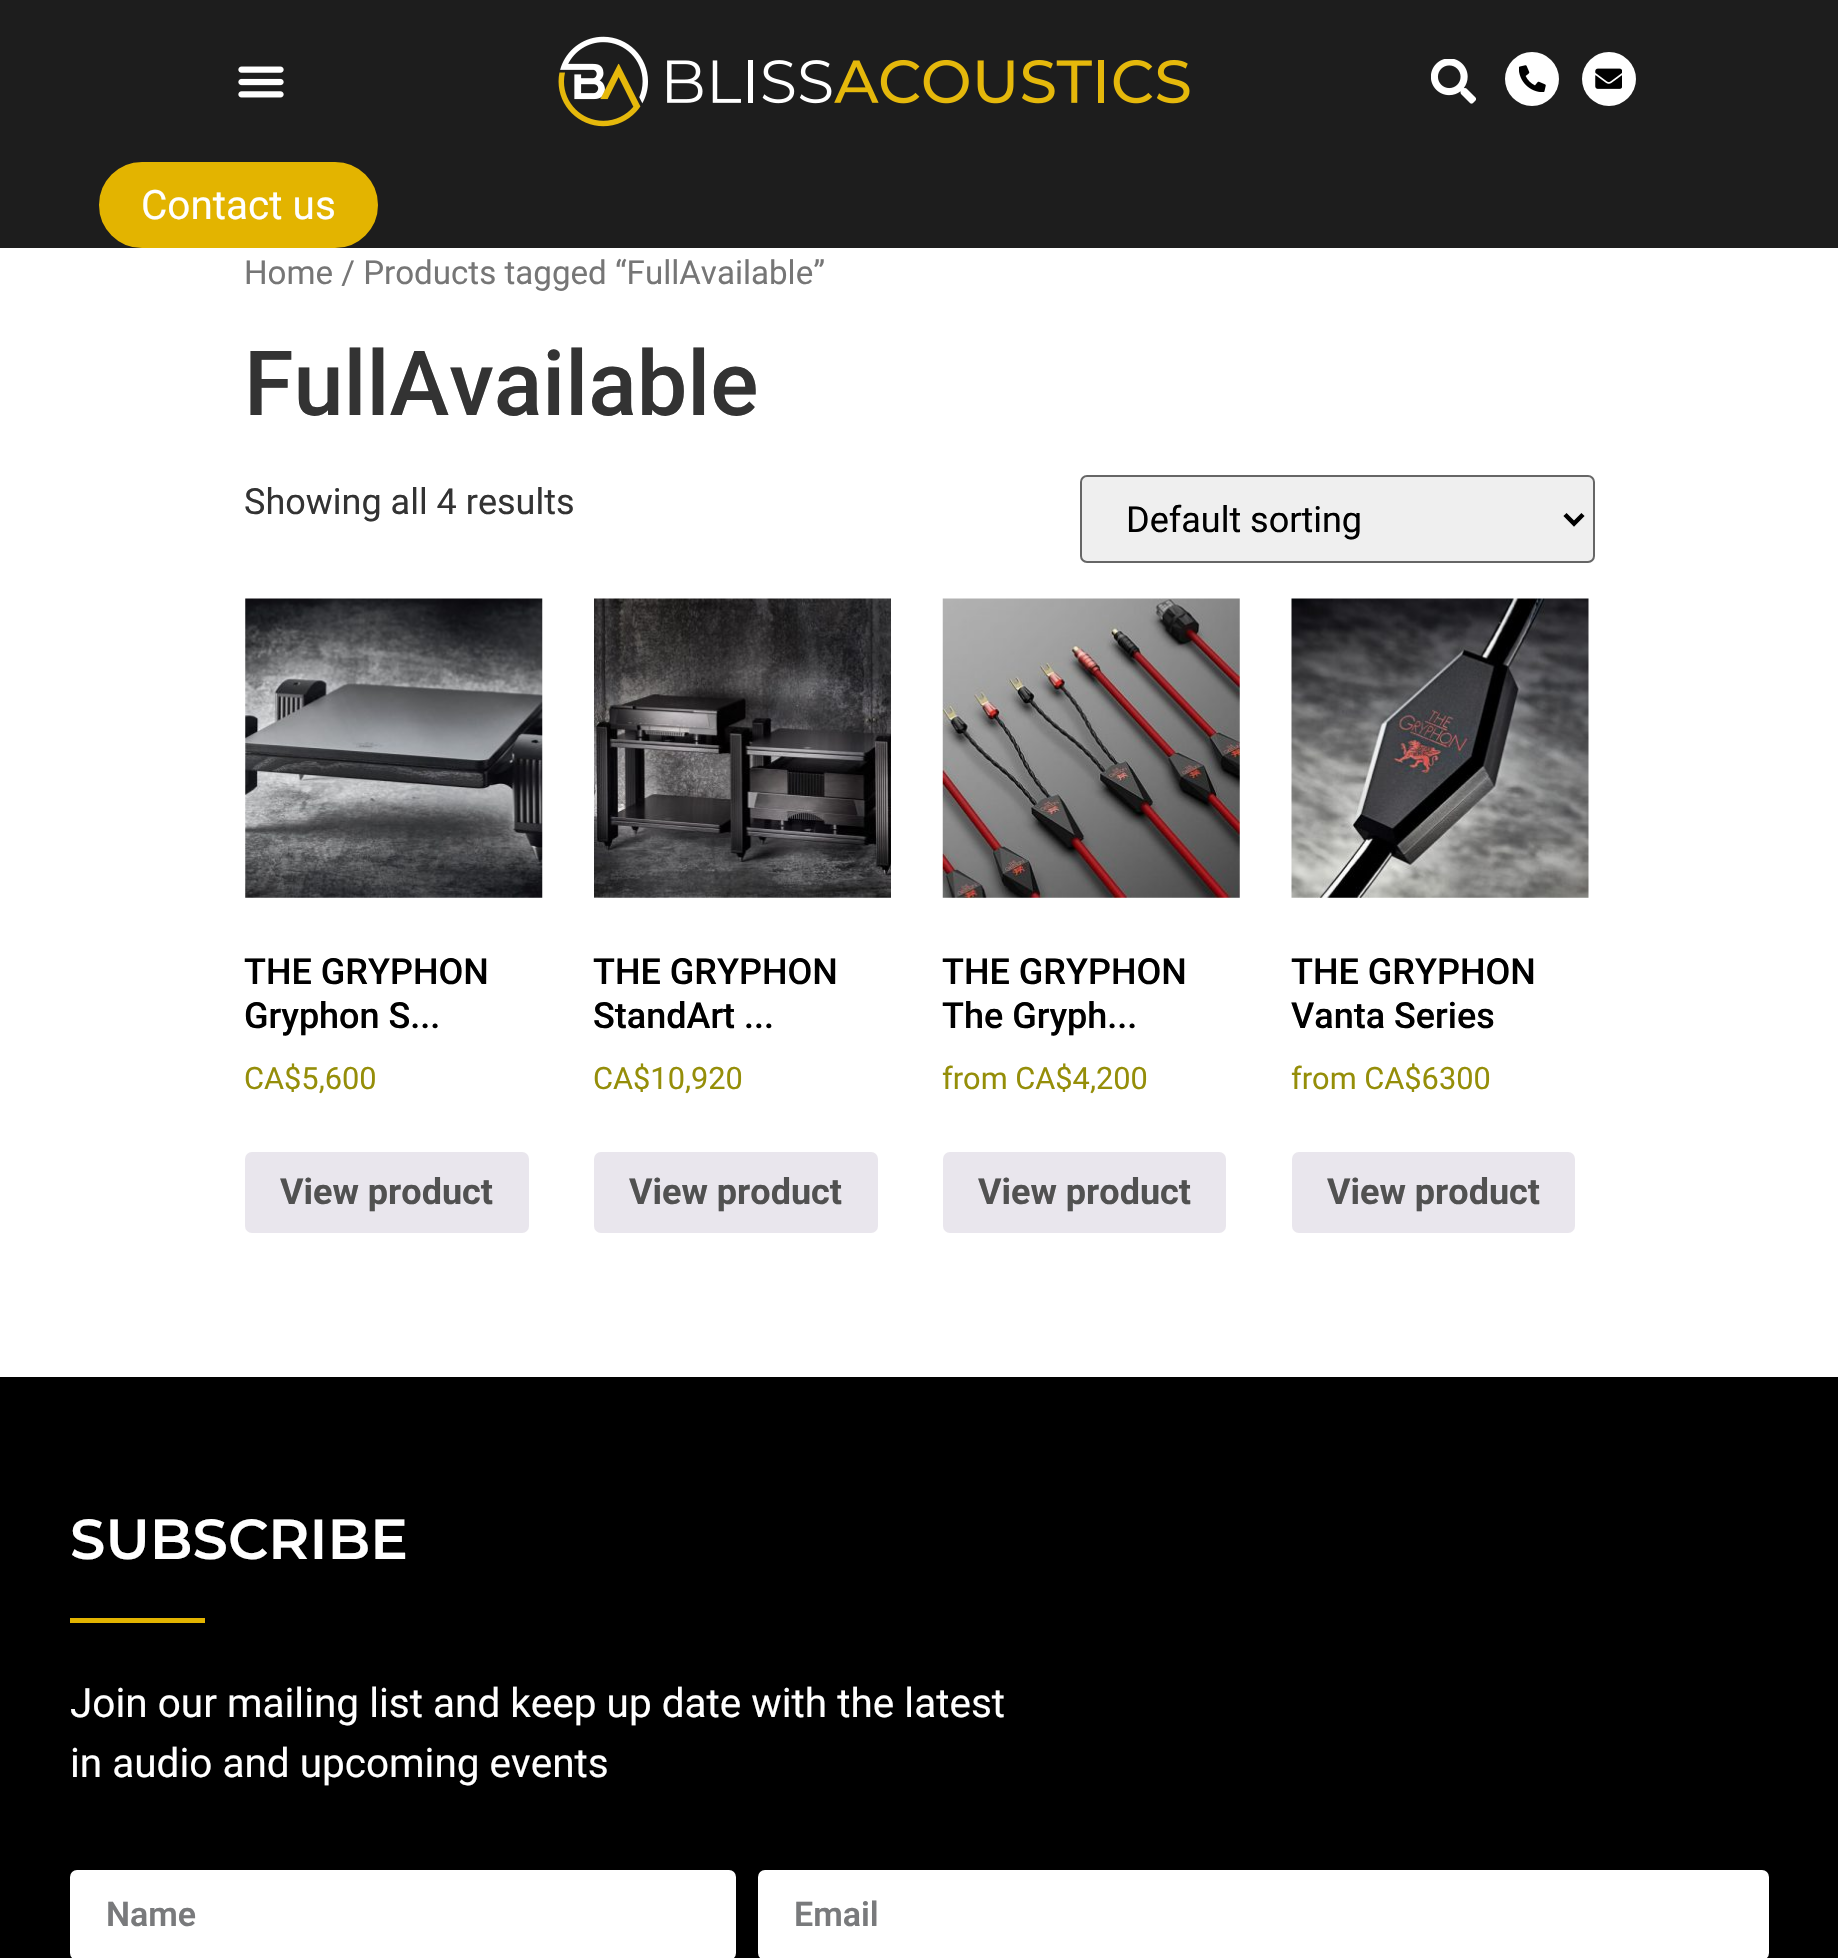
#include "include/core/SkBlurTypes.h"
#include "include/core/SkCanvas.h"
#include "include/core/SkData.h"
#include "include/core/SkFont.h"
#include "include/core/SkFontMgr.h"
#include "include/core/SkImage.h"
#include "include/core/SkMaskFilter.h"
#include "include/core/SkPaint.h"
#include "include/core/SkPathBuilder.h"
#include "include/core/SkTextBlob.h"
#include "include/effects/SkDashPathEffect.h"
#include "include/effects/SkGradientShader.h"
#include "include/utils/SkParsePath.h"

extern sk_sp<SkFontMgr> fontMgr;

void draw(SkCanvas* canvas) {
  SkPaint p;
  p.setAntiAlias(true);
  canvas->clear(SK_ColorWHITE);
  p.setColor(SkColorSetRGB(29, 29, 29));
  canvas->drawRect(SkRect::MakeLTRB(0, 0, 1838, 248), p);
  canvas->drawImageRect(SkImages::DeferredFromEncodedData(SkData::MakeFromFileName("images/1.png")), SkRect::MakeLTRB(238, 66, 284, 98), SkSamplingOptions());
  canvas->drawImageRect(SkImages::DeferredFromEncodedData(SkData::MakeFromFileName("images/2.png")), SkRect::MakeLTRB(558, 36, 1190, 127), SkSamplingOptions());
  canvas->drawImageRect(SkImages::DeferredFromEncodedData(SkData::MakeFromFileName("images/3.png")), SkRect::MakeLTRB(1431, 59, 1476, 104), SkSamplingOptions());
  p.setColor(SK_ColorWHITE);
  canvas->drawCircle(1532, 79, 27, p);
  canvas->drawImageRect(SkImages::DeferredFromEncodedData(SkData::MakeFromFileName("images/4.png")), SkRect::MakeLTRB(1519, 65, 1546, 92), SkSamplingOptions());
  canvas->drawCircle(1609, 79, 27, p);
  canvas->drawImageRect(SkImages::DeferredFromEncodedData(SkData::MakeFromFileName("images/5.png")), SkRect::MakeLTRB(1595, 68, 1622, 89), SkSamplingOptions());
  p.setColor(SkColorSetRGB(227, 180, 0));
  canvas->drawRoundRect(SkRect::MakeLTRB(100, 163, 377, 247), 42, 42, p);
  p.setStyle(SkPaint::kStroke_Style);
  p.setStrokeWidth(2);
  canvas->drawRoundRect(SkRect::MakeLTRB(100, 163, 377, 247), 42, 42, p);
  p.setStyle(SkPaint::kFill_Style);
  p.setColor(SkColorSetRGB(239, 239, 239));
  canvas->drawRoundRect(SkRect::MakeLTRB(1081, 476, 1594, 562), 6, 6, p);
  p.setStyle(SkPaint::kStroke_Style);
  p.setColor(SkColorSetRGB(102, 102, 102));
  canvas->drawRoundRect(SkRect::MakeLTRB(1081, 476, 1594, 562), 6, 6, p);
  p.setStrokeWidth(4.5f);
  p.setColor(SK_ColorBLACK);
  canvas->drawPath(SkPathBuilder().moveTo(1565, 514.5f).lineTo(1574, 523.5f).lineTo(1583, 514.5f).detach(), p);
  canvas->drawImageRect(SkImages::DeferredFromEncodedData(SkData::MakeFromFileName("images/6.png")), SkRect::MakeLTRB(245, 598, 543, 898), SkSamplingOptions());
  p.setStyle(SkPaint::kFill_Style);
  p.setColor(SkColorSetRGB(233, 230, 237));
  canvas->drawRoundRect(SkRect::MakeLTRB(245, 1152, 529, 1233), 7, 7, p);
  canvas->drawImageRect(SkImages::DeferredFromEncodedData(SkData::MakeFromFileName("images/7.png")), SkRect::MakeLTRB(594, 598, 891, 898), SkSamplingOptions());
  canvas->drawRoundRect(SkRect::MakeLTRB(594, 1152, 878, 1233), 7, 7, p);
  canvas->drawImageRect(SkImages::DeferredFromEncodedData(SkData::MakeFromFileName("images/8.png")), SkRect::MakeLTRB(942, 598, 1240, 898), SkSamplingOptions());
  canvas->drawRoundRect(SkRect::MakeLTRB(943, 1152, 1226, 1233), 7, 7, p);
  canvas->drawImageRect(SkImages::DeferredFromEncodedData(SkData::MakeFromFileName("images/9.png")), SkRect::MakeLTRB(1291, 598, 1589, 898), SkSamplingOptions());
  canvas->drawRoundRect(SkRect::MakeLTRB(1292, 1152, 1575, 1233), 7, 7, p);
  p.setColor(SK_ColorBLACK);
  canvas->drawRect(SkRect::MakeLTRB(0, 1377, 1838, 1958), p);
  p.setColor(SkColorSetRGB(227, 180, 0));
  canvas->drawRect(SkRect::MakeLTRB(70, 1618, 205, 1623), p);
  p.setColor(SK_ColorWHITE);
  canvas->drawRoundRect(SkRect::MakeLTRB(70, 1870, 736, 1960), 7, 7, p);
  canvas->drawRoundRect(SkRect::MakeLTRB(758, 1870, 1769, 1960), 7, 7, p);
  SkFont font1(fontMgr->matchFamilyStyle("Roboto", SkFontStyle::Normal()), 40.5f);
  font1.setSubpixel(true);
  canvas->drawString("Contact us", 141, 219, font1, p);
  SkFont font2(fontMgr->matchFamilyStyle("Roboto", SkFontStyle::Normal()), 33.1f);
  font2.setSubpixel(true);
  p.setColor(SkColorSetRGB(118, 118, 118));
  canvas->drawString("Home / Products tagged “FullAvailable”", 244, 284, font2, p);
  SkFont font3(fontMgr->matchFamilyStyle("Roboto", SkFontStyle(500, SkFontStyle::kNormal_Width, SkFontStyle::kUpright_Slant)), 90);
  font3.setSubpixel(true);
  p.setColor(SkColorSetRGB(51, 51, 51));
  canvas->drawString("FullAvailable", 244, 415, font3, p);
  SkFont font4(fontMgr->matchFamilyStyle("Roboto", SkFontStyle::Normal()), 36);
  font4.setSubpixel(true);
  canvas->drawString("Showing all 4 results", 244, 514, font4, p);
  p.setColor(SK_ColorBLACK);
  canvas->drawString("Default sorting", 1126, 532, font4, p);
  SkFont font5(fontMgr->matchFamilyStyle("Roboto", SkFontStyle(500, SkFontStyle::kNormal_Width, SkFontStyle::kUpright_Slant)), 36);
  font5.setSubpixel(true);
  canvas->drawString("THE GRYPHON", 244, 984, font5, p);
  canvas->drawString("Gryphon S...", 244, 1028, font5, p);
  SkFont font6(fontMgr->matchFamilyStyle("Roboto", SkFontStyle::Normal()), 30.75f);
  font6.setSubpixel(true);
  p.setColor(SkColorSetRGB(149, 142, 9));
  canvas->drawString("CA$5,600", 244, 1089, font6, p);
  SkFont font7(fontMgr->matchFamilyStyle("Roboto", SkFontStyle::Bold()), 36);
  font7.setSubpixel(true);
  p.setColor(SkColorSetRGB(81, 81, 81));
  canvas->drawString("View product", 280, 1204, font7, p);
  p.setColor(SK_ColorBLACK);
  canvas->drawString("THE GRYPHON", 593, 984, font5, p);
  canvas->drawString("StandArt ...", 593, 1028, font5, p);
  p.setColor(SkColorSetRGB(149, 142, 9));
  canvas->drawString("CA$10,920", 593, 1089, font6, p);
  p.setColor(SkColorSetRGB(81, 81, 81));
  canvas->drawString("View product", 629, 1204, font7, p);
  p.setColor(SK_ColorBLACK);
  canvas->drawString("THE GRYPHON", 942, 984, font5, p);
  canvas->drawString("The Gryph...", 942, 1028, font5, p);
  p.setColor(SkColorSetRGB(149, 142, 9));
  canvas->drawString("from CA$4,200", 942, 1089, font6, p);
  p.setColor(SkColorSetRGB(81, 81, 81));
  canvas->drawString("View product", 978, 1204, font7, p);
  p.setColor(SK_ColorBLACK);
  canvas->drawString("THE GRYPHON", 1291, 984, font5, p);
  canvas->drawString("Vanta Series", 1291, 1028, font5, p);
  p.setColor(SkColorSetRGB(149, 142, 9));
  canvas->drawString("from CA$6300", 1291, 1089, font6, p);
  p.setColor(SkColorSetRGB(81, 81, 81));
  canvas->drawString("View product", 1327, 1204, font7, p);
  SkFont font8(fontMgr->matchFamilyStyle("Montserrat", SkFontStyle(600, SkFontStyle::kNormal_Width, SkFontStyle::kUpright_Slant)), 56.25f);
  font8.setSubpixel(true);
  p.setColor(SK_ColorWHITE);
  canvas->drawString("SUBSCRIBE", 70, 1559, font8, p);
  canvas->drawString("Join our mailing list and keep up date with the latest", 70, 1717, font1, p);
  canvas->drawString("in audio and upcoming events", 70, 1777, font1, p);
  SkFont font9(fontMgr->matchFamilyStyle("Roboto", SkFontStyle(600, SkFontStyle::kNormal_Width, SkFontStyle::kUpright_Slant)), 34);
  font9.setSubpixel(true);
  p.setColor(SkColorSetRGB(121, 122, 124));
  canvas->drawString("Name", 106, 1926, font9, p);
  canvas->drawString("Email", 794, 1926, font9, p);
}
